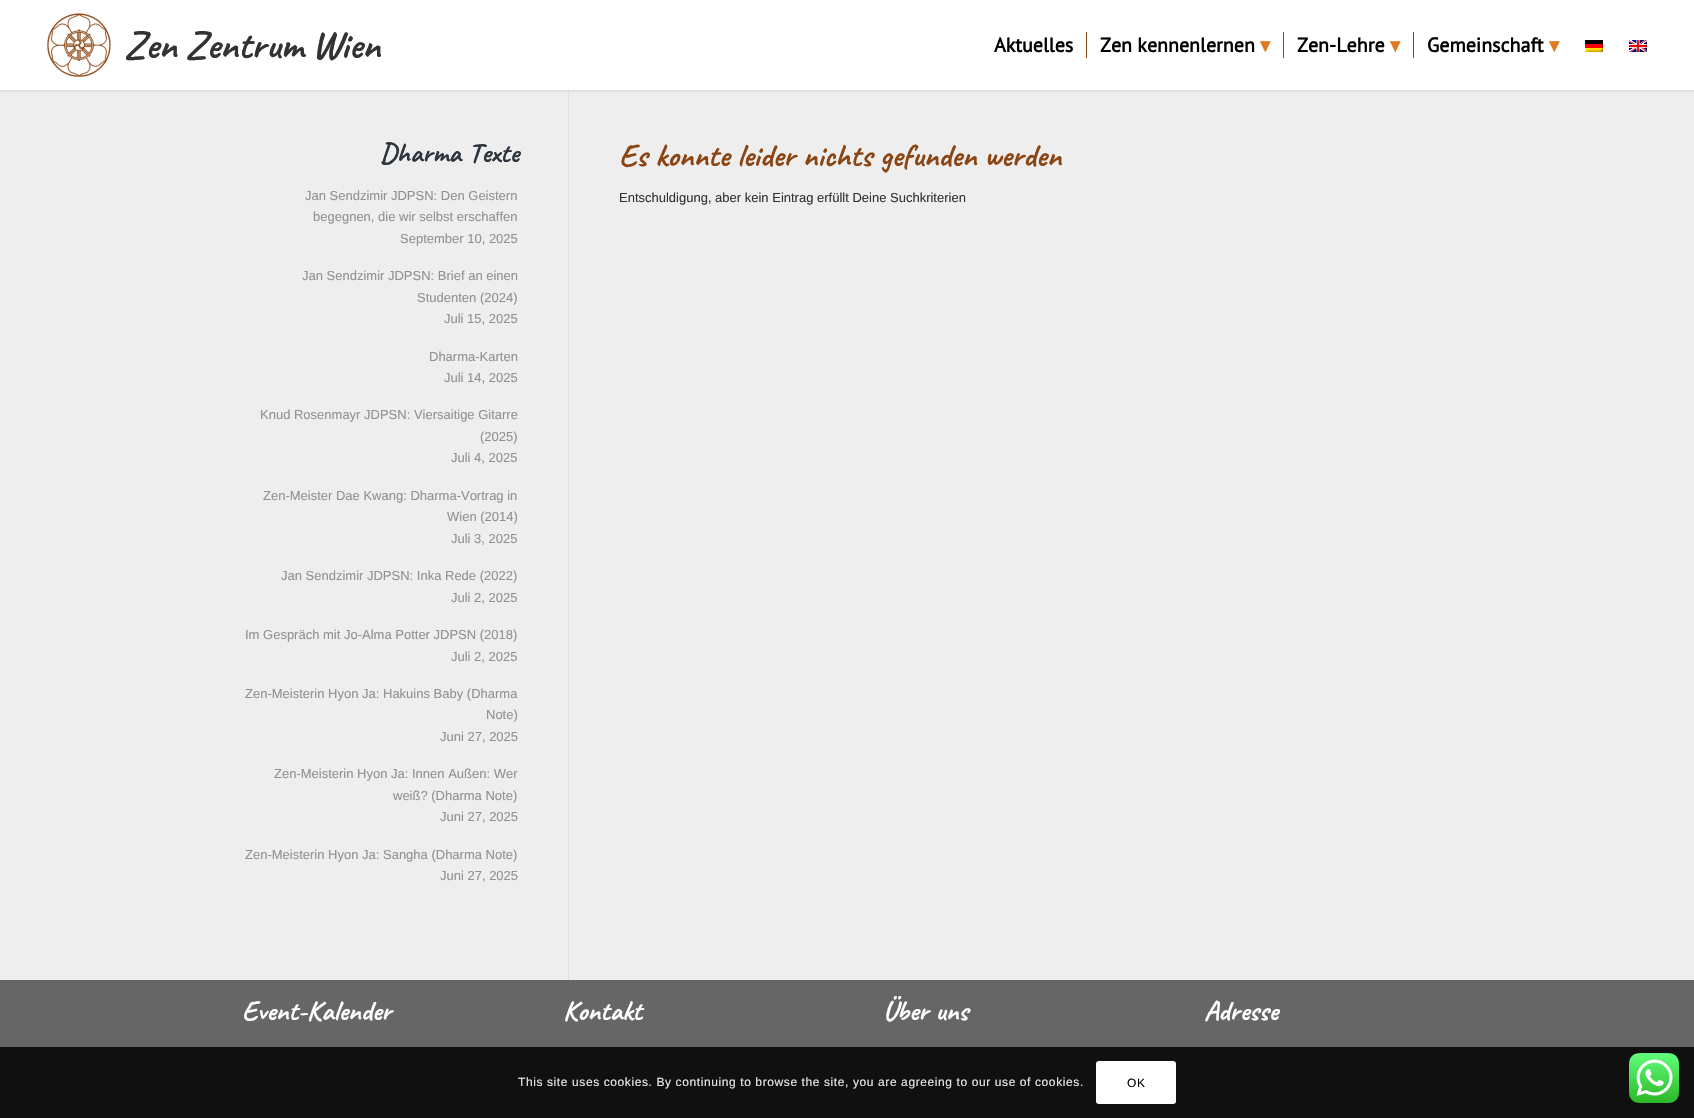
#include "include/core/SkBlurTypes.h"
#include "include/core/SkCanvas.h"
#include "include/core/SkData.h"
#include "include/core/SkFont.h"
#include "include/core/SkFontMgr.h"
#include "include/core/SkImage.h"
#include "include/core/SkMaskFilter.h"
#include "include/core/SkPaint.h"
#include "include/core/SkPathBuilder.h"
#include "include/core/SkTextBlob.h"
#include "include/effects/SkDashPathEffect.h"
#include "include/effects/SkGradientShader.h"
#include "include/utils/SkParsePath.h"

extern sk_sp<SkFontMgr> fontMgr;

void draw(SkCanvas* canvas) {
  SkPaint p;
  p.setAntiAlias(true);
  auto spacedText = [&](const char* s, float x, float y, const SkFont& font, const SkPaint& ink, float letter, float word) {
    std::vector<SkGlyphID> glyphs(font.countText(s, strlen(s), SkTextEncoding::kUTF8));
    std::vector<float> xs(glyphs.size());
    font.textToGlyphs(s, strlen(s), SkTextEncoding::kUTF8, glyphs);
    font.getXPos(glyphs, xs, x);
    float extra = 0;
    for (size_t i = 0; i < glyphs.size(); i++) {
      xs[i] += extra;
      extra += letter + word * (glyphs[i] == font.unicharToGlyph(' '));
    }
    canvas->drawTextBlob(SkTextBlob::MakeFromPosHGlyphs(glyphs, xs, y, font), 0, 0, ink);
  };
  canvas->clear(SkColorSetRGB(238, 238, 238));
  p.setColor(SkColorSetRGB(225, 225, 225));
  canvas->drawRect(SkRect::MakeLTRB(568, 88, 569, 980), p);
  p.setColor(SkColorSetARGB(26, 0, 0, 0));
  p.setMaskFilter(SkMaskFilter::MakeBlur(kNormal_SkBlurStyle, 1));
  canvas->drawRect(SkRect::MakeLTRB(-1, -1, 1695, 91), p);
  p.setMaskFilter(nullptr);
  p.setColor(SK_ColorWHITE);
  canvas->drawRect(SkRect::MakeLTRB(0, 0, 1694, 90), p);
  canvas->drawImageRect(SkImages::DeferredFromEncodedData(SkData::MakeFromFileName("images/1.png")), SkRect::MakeLTRB(47, 13, 111, 77), SkSamplingOptions());
  p.setColor(SkColorSetRGB(139, 69, 19));
  canvas->drawRect(SkRect::MakeLTRB(1086, 32, 1087, 58), p);
  canvas->drawRect(SkRect::MakeLTRB(1283, 32, 1284, 58), p);
  canvas->drawRect(SkRect::MakeLTRB(1413, 32, 1414, 58), p);
  canvas->drawImageRect(SkImages::DeferredFromEncodedData(SkData::MakeFromFileName("images/2.png")), SkRect::MakeLTRB(1585, 40, 1603, 52), SkSamplingOptions());
  canvas->drawImageRect(SkImages::DeferredFromEncodedData(SkData::MakeFromFileName("images/3.png")), SkRect::MakeLTRB(1629, 40, 1647, 52), SkSamplingOptions());
  p.setColor(SkColorSetRGB(102, 102, 102));
  canvas->drawRect(SkRect::MakeLTRB(0, 981, 1694, 1118), p);
  p.setColor(SkColorSetRGB(91, 100, 107));
  canvas->drawRect(SkRect::MakeLTRB(0, 980, 1694, 981), p);
  p.setColor(SkColorSetARGB(217, 0, 0, 0));
  canvas->drawRect(SkRect::MakeLTRB(0, 1047, 1694, 1118), p);
  p.setColor(SK_ColorWHITE);
  canvas->drawRoundRect(SkRect::MakeLTRB(1096, 1061, 1176, 1104), 3, 3, p);
  canvas->drawImageRect(SkImages::DeferredFromEncodedData(SkData::MakeFromFileName("images/4.png")), SkRect::MakeLTRB(1629, 1053, 1679, 1103), SkSamplingOptions());
  SkFont font1(fontMgr->matchFamilyStyle("Caveat", SkFontStyle::Bold()), 40);
  font1.setSubpixel(true);
  p.setColor(SkColorSetRGB(51, 51, 51));
  spacedText("Zen Zentrum Wien", 124, 58, font1, p, 0, -1);
  SkFont font2(fontMgr->matchFamilyStyle("PT Sans", SkFontStyle::Bold()), 20);
  font2.setSubpixel(true);
  p.setColor(SK_ColorBLACK);
  canvas->drawString("Aktuelles", 994, 52, font2, p);
  canvas->drawString("Zen kennenlernen", 1100, 52, font2, p);
  SkFont font3(fontMgr->matchFamilyStyle("DejaVu Sans", SkFontStyle::Bold()), 20);
  font3.setSubpixel(true);
  p.setColor(SkColorSetRGB(224, 121, 31));
  canvas->drawString("▾", 1260, 52, font3, p);
  p.setColor(SK_ColorBLACK);
  canvas->drawString("Zen-Lehre", 1297, 52, font2, p);
  p.setColor(SkColorSetRGB(224, 121, 31));
  canvas->drawString("▾", 1390, 52, font3, p);
  p.setColor(SK_ColorBLACK);
  canvas->drawString("Gemeinschaft", 1427, 52, font2, p);
  p.setColor(SkColorSetRGB(224, 121, 31));
  canvas->drawString("▾", 1549, 52, font3, p);
  SkFont font4(fontMgr->matchFamilyStyle("Caveat", SkFontStyle::Bold()), 28);
  font4.setSubpixel(true);
  p.setColor(SkColorSetRGB(44, 53, 61));
  spacedText("Dharma Texte", 380, 162, font4, p, 0, 1);
  SkFont font5(fontMgr->matchFamilyStyle("Liberation Sans", SkFontStyle::Normal()), 13);
  font5.setSubpixel(true);
  p.setColor(SkColorSetRGB(145, 145, 145));
  canvas->drawString("Jan Sendzimir JDPSN: Den Geistern", 305, 200, font5, p);
  canvas->drawString("begegnen, die wir selbst erschaffen", 313, 221, font5, p);
  canvas->drawString("September 10, 2025", 400, 243, font5, p);
  canvas->drawString("Jan Sendzimir JDPSN: Brief an einen", 302, 280, font5, p);
  canvas->drawString("Studenten (2024)", 417, 302, font5, p);
  canvas->drawString("Juli 15, 2025", 444, 323, font5, p);
  canvas->drawString("Dharma-Karten", 429, 361, font5, p);
  canvas->drawString("Juli 14, 2025", 444, 382, font5, p);
  canvas->drawString("Knud Rosenmayr JDPSN: Viersaitige Gitarre", 260, 419, font5, p);
  canvas->drawString("(2025)", 480, 441, font5, p);
  canvas->drawString("Juli 4, 2025", 451, 462, font5, p);
  canvas->drawString("Zen-Meister Dae Kwang: Dharma-Vortrag in", 263, 500, font5, p);
  canvas->drawString("Wien (2014)", 447, 521, font5, p);
  canvas->drawString("Juli 3, 2025", 451, 543, font5, p);
  canvas->drawString("Jan Sendzimir JDPSN: Inka Rede (2022)", 281, 580, font5, p);
  canvas->drawString("Juli 2, 2025", 451, 602, font5, p);
  canvas->drawString("Im Gespräch mit Jo-Alma Potter JDPSN (2018)", 245, 639, font5, p);
  canvas->drawString("Juli 2, 2025", 451, 661, font5, p);
  canvas->drawString("Zen-Meisterin Hyon Ja: Hakuins Baby (Dharma", 245, 698, font5, p);
  canvas->drawString("Note)", 486, 719, font5, p);
  canvas->drawString("Juni 27, 2025", 440, 741, font5, p);
  canvas->drawString("Zen-Meisterin Hyon Ja: Innen Außen: Wer", 274, 778, font5, p);
  canvas->drawString("weiß? (Dharma Note)", 393, 800, font5, p);
  canvas->drawString("Juni 27, 2025", 440, 821, font5, p);
  canvas->drawString("Zen-Meisterin Hyon Ja: Sangha (Dharma Note)", 245, 859, font5, p);
  canvas->drawString("Juni 27, 2025", 440, 880, font5, p);
  SkFont font6(fontMgr->matchFamilyStyle("Caveat", SkFontStyle::Bold()), 32);
  font6.setSubpixel(true);
  p.setColor(SkColorSetRGB(139, 69, 19));
  canvas->drawString("Es konnte leider nichts gefunden werden", 619, 166, font6, p);
  p.setColor(SkColorSetRGB(51, 51, 51));
  canvas->drawString("Entschuldigung, aber kein Eintrag erfüllt Deine Suchkriterien", 619, 202, font5, p);
  p.setColor(SK_ColorWHITE);
  canvas->drawString("Event-Kalender", 242, 1020, font4, p);
  canvas->drawString("Kontakt", 563, 1020, font4, p);
  canvas->save();
  canvas->clipRect(SkRect::MakeLTRB(883, 996, 1131, 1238));
  canvas->drawString("Über uns", 883, 1020, font4, p);
  canvas->restore();
  canvas->drawString("Adresse", 1204, 1020, font4, p);
  SkFont font7(fontMgr->matchFamilyStyle("Liberation Sans", SkFontStyle::Normal()), 12);
  font7.setSubpixel(true);
  p.setColor(SkColorSetRGB(231, 231, 231));
  spacedText("This site uses cookies. By continuing to browse the site, you are agreeing to our use of cookies.", 518, 1086, font7, p, 0.6f, 0);
  p.setColor(SK_ColorBLACK);
  spacedText("OK", 1127, 1087, font7, p, 0.6f, 0);
}
